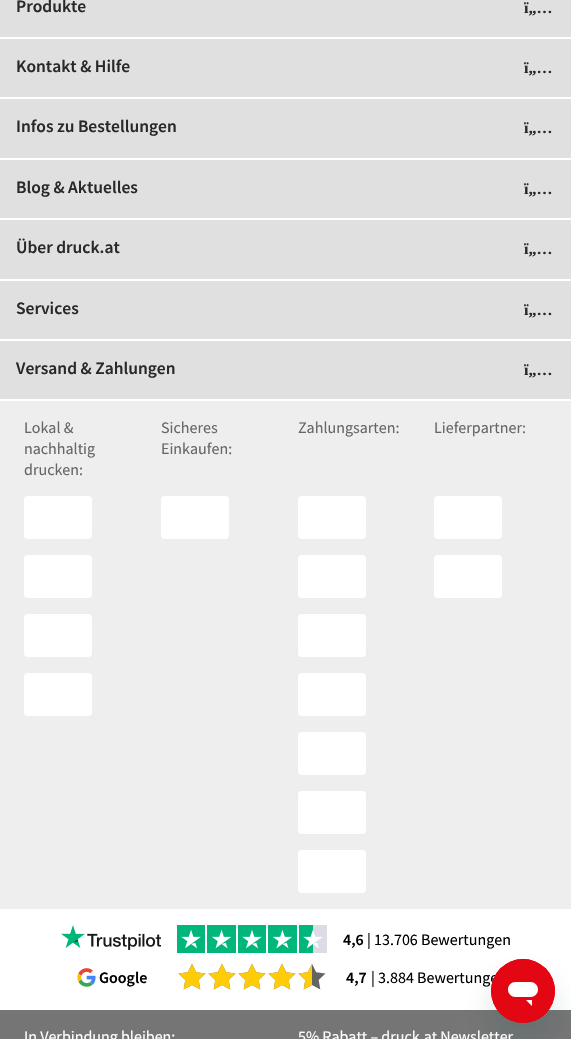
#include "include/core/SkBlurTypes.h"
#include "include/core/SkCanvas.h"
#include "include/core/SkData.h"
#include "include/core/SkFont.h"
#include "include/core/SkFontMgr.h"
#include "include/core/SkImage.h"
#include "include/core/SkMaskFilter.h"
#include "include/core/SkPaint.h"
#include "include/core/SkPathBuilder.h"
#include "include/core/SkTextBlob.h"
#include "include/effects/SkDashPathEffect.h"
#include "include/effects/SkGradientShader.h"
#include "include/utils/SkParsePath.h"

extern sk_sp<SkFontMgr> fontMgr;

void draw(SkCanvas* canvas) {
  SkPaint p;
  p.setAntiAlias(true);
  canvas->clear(SkColorSetRGB(117, 117, 117));
  p.setColor(SkColorSetRGB(224, 224, 224));
  canvas->drawRect(SkRect::MakeLTRB(0, 0, 571, 37), p);
  p.setColor(SK_ColorWHITE);
  canvas->drawRect(SkRect::MakeLTRB(0, 37, 571, 39), p);
  p.setColor(SkColorSetRGB(238, 238, 238));
  canvas->drawRect(SkRect::MakeLTRB(0, 401, 571, 909), p);
  p.setColor(SkColorSetRGB(224, 224, 224));
  canvas->drawRect(SkRect::MakeLTRB(0, 39, 571, 97), p);
  p.setColor(SK_ColorWHITE);
  canvas->drawRect(SkRect::MakeLTRB(0, 97, 571, 99), p);
  p.setColor(SkColorSetRGB(224, 224, 224));
  canvas->drawRect(SkRect::MakeLTRB(0, 99, 571, 158), p);
  p.setColor(SK_ColorWHITE);
  canvas->drawRect(SkRect::MakeLTRB(0, 158, 571, 160), p);
  p.setColor(SkColorSetRGB(224, 224, 224));
  canvas->drawRect(SkRect::MakeLTRB(0, 160, 571, 218), p);
  p.setColor(SK_ColorWHITE);
  canvas->drawRect(SkRect::MakeLTRB(0, 218, 571, 220), p);
  p.setColor(SkColorSetRGB(224, 224, 224));
  canvas->drawRect(SkRect::MakeLTRB(0, 220, 571, 279), p);
  p.setColor(SK_ColorWHITE);
  canvas->drawRect(SkRect::MakeLTRB(0, 279, 571, 281), p);
  p.setColor(SkColorSetRGB(224, 224, 224));
  canvas->drawRect(SkRect::MakeLTRB(0, 281, 571, 339), p);
  p.setColor(SK_ColorWHITE);
  canvas->drawRect(SkRect::MakeLTRB(0, 339, 571, 341), p);
  p.setColor(SkColorSetRGB(224, 224, 224));
  canvas->drawRect(SkRect::MakeLTRB(0, 341, 571, 399), p);
  p.setColor(SK_ColorWHITE);
  canvas->drawRect(SkRect::MakeLTRB(0, 399, 571, 401), p);
  canvas->drawRoundRect(SkRect::MakeLTRB(24, 496, 92, 539), 4, 4, p);
  canvas->drawRoundRect(SkRect::MakeLTRB(24, 555, 92, 598), 4, 4, p);
  canvas->drawRoundRect(SkRect::MakeLTRB(24, 614, 92, 657), 4, 4, p);
  canvas->drawRoundRect(SkRect::MakeLTRB(24, 673, 92, 716), 4, 4, p);
  canvas->drawRoundRect(SkRect::MakeLTRB(161, 496, 229, 539), 4, 4, p);
  canvas->drawRoundRect(SkRect::MakeLTRB(298, 496, 366, 539), 4, 4, p);
  canvas->drawRoundRect(SkRect::MakeLTRB(298, 555, 366, 598), 4, 4, p);
  canvas->drawRoundRect(SkRect::MakeLTRB(298, 614, 366, 657), 4, 4, p);
  canvas->drawRoundRect(SkRect::MakeLTRB(298, 673, 366, 716), 4, 4, p);
  canvas->drawRoundRect(SkRect::MakeLTRB(298, 732, 366, 775), 4, 4, p);
  canvas->drawRoundRect(SkRect::MakeLTRB(298, 791, 366, 834), 4, 4, p);
  canvas->drawRoundRect(SkRect::MakeLTRB(298, 850, 366, 893), 4, 4, p);
  canvas->drawRoundRect(SkRect::MakeLTRB(434, 496, 502, 539), 4, 4, p);
  canvas->drawRoundRect(SkRect::MakeLTRB(434, 555, 502, 598), 4, 4, p);
  canvas->drawRect(SkRect::MakeLTRB(0, 909, 571, 1010), p);
  canvas->drawImageRect(SkImages::DeferredFromEncodedData(SkData::MakeFromFileName("images/1.png")), SkRect::MakeLTRB(61, 925, 161, 950), SkSamplingOptions());
  canvas->drawImageRect(SkImages::DeferredFromEncodedData(SkData::MakeFromFileName("images/2.png")), SkRect::MakeLTRB(177, 925, 327, 953), SkSamplingOptions());
  canvas->drawImageRect(SkImages::DeferredFromEncodedData(SkData::MakeFromFileName("images/3.png")), SkRect::MakeLTRB(77, 968, 96, 987), SkSamplingOptions());
  canvas->drawImageRect(SkImages::DeferredFromEncodedData(SkData::MakeFromFileName("images/4.png")), SkRect::MakeLTRB(178, 964, 326, 990), SkSamplingOptions());
  canvas->drawImageRect(SkImages::DeferredFromEncodedData(SkData::MakeFromFileName("images/5.png")), SkRect::MakeLTRB(178, 964, 312, 990), SkSamplingOptions());
  p.setColor(SkColorSetARGB(38, 23, 73, 77));
  p.setMaskFilter(SkMaskFilter::MakeBlur(kNormal_SkBlurStyle, 15));
  canvas->drawRoundRect(SkRect::MakeLTRB(491, 979, 555, 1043), 32, 32, p);
  p.setMaskFilter(nullptr);
  SkFont font1(fontMgr->matchFamilyStyle("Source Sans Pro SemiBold", SkFontStyle(600, SkFontStyle::kNormal_Width, SkFontStyle::kUpright_Slant)), 17.5f);
  font1.setSubpixel(true);
  p.setColor(SkColorSetRGB(41, 41, 41));
  canvas->drawString("Produkte", 16, 12, font1, p);
  SkFont font2(fontMgr->matchFamilyStyle("Liberation Serif", SkFontStyle::Bold()), 16);
  font2.setSubpixel(true);
  canvas->drawString("ï„…", 524, 13, font2, p);
  canvas->drawString("Kontakt & Hilfe", 16, 72, font1, p);
  canvas->drawString("ï„…", 524, 73, font2, p);
  canvas->drawString("Infos zu Bestellungen", 16, 132, font1, p);
  canvas->drawString("ï„…", 524, 133, font2, p);
  canvas->drawString("Blog & Aktuelles", 16, 193, font1, p);
  canvas->drawString("ï„…", 524, 194, font2, p);
  canvas->drawString("Über druck.at", 16, 253, font1, p);
  canvas->drawString("ï„…", 524, 254, font2, p);
  canvas->drawString("Services", 16, 314, font1, p);
  canvas->drawString("ï„…", 524, 315, font2, p);
  canvas->drawString("Versand & Zahlungen", 16, 374, font1, p);
  canvas->drawString("ï„…", 524, 375, font2, p);
  SkFont font3(fontMgr->matchFamilyStyle("Source Sans Pro", SkFontStyle::Normal()), 16);
  font3.setSubpixel(true);
  p.setColor(SkColorSetRGB(102, 102, 102));
  canvas->drawString("Lokal &", 24, 433, font3, p);
  canvas->drawString("nachhaltig", 24, 454, font3, p);
  canvas->drawString("drucken:", 24, 475, font3, p);
  canvas->drawString("Sicheres", 161, 433, font3, p);
  canvas->drawString("Einkaufen:", 161, 454, font3, p);
  canvas->drawString("Zahlungsarten:", 298, 433, font3, p);
  canvas->drawString("Lieferpartner:", 434, 433, font3, p);
  SkFont font4(fontMgr->matchFamilyStyle("Source Sans Pro SemiBold", SkFontStyle(600, SkFontStyle::kNormal_Width, SkFontStyle::kUpright_Slant)), 16);
  font4.setSubpixel(true);
  p.setColor(SK_ColorBLACK);
  canvas->drawString("4,6", 343, 945, font4, p);
  canvas->drawString("| 13.706 Bewertungen", 367, 945, font3, p);
  canvas->drawString("Google", 99, 983, font4, p);
  canvas->drawString("4,7", 346, 983, font4, p);
  canvas->drawString("| 3.884 Bewertunge", 371, 983, font3, p);
  p.setColor(SK_ColorWHITE);
  canvas->drawString("In Verbindung bleiben:", 24, 1042, font3, p);
  canvas->drawString("5% Rabatt – druck.at Newsletter", 298, 1042, font3, p);
  canvas->drawImageRect(SkImages::DeferredFromEncodedData(SkData::MakeFromFileName("images/6.png")), SkRect::MakeLTRB(491, 959, 555, 1023), SkSamplingOptions());
}
